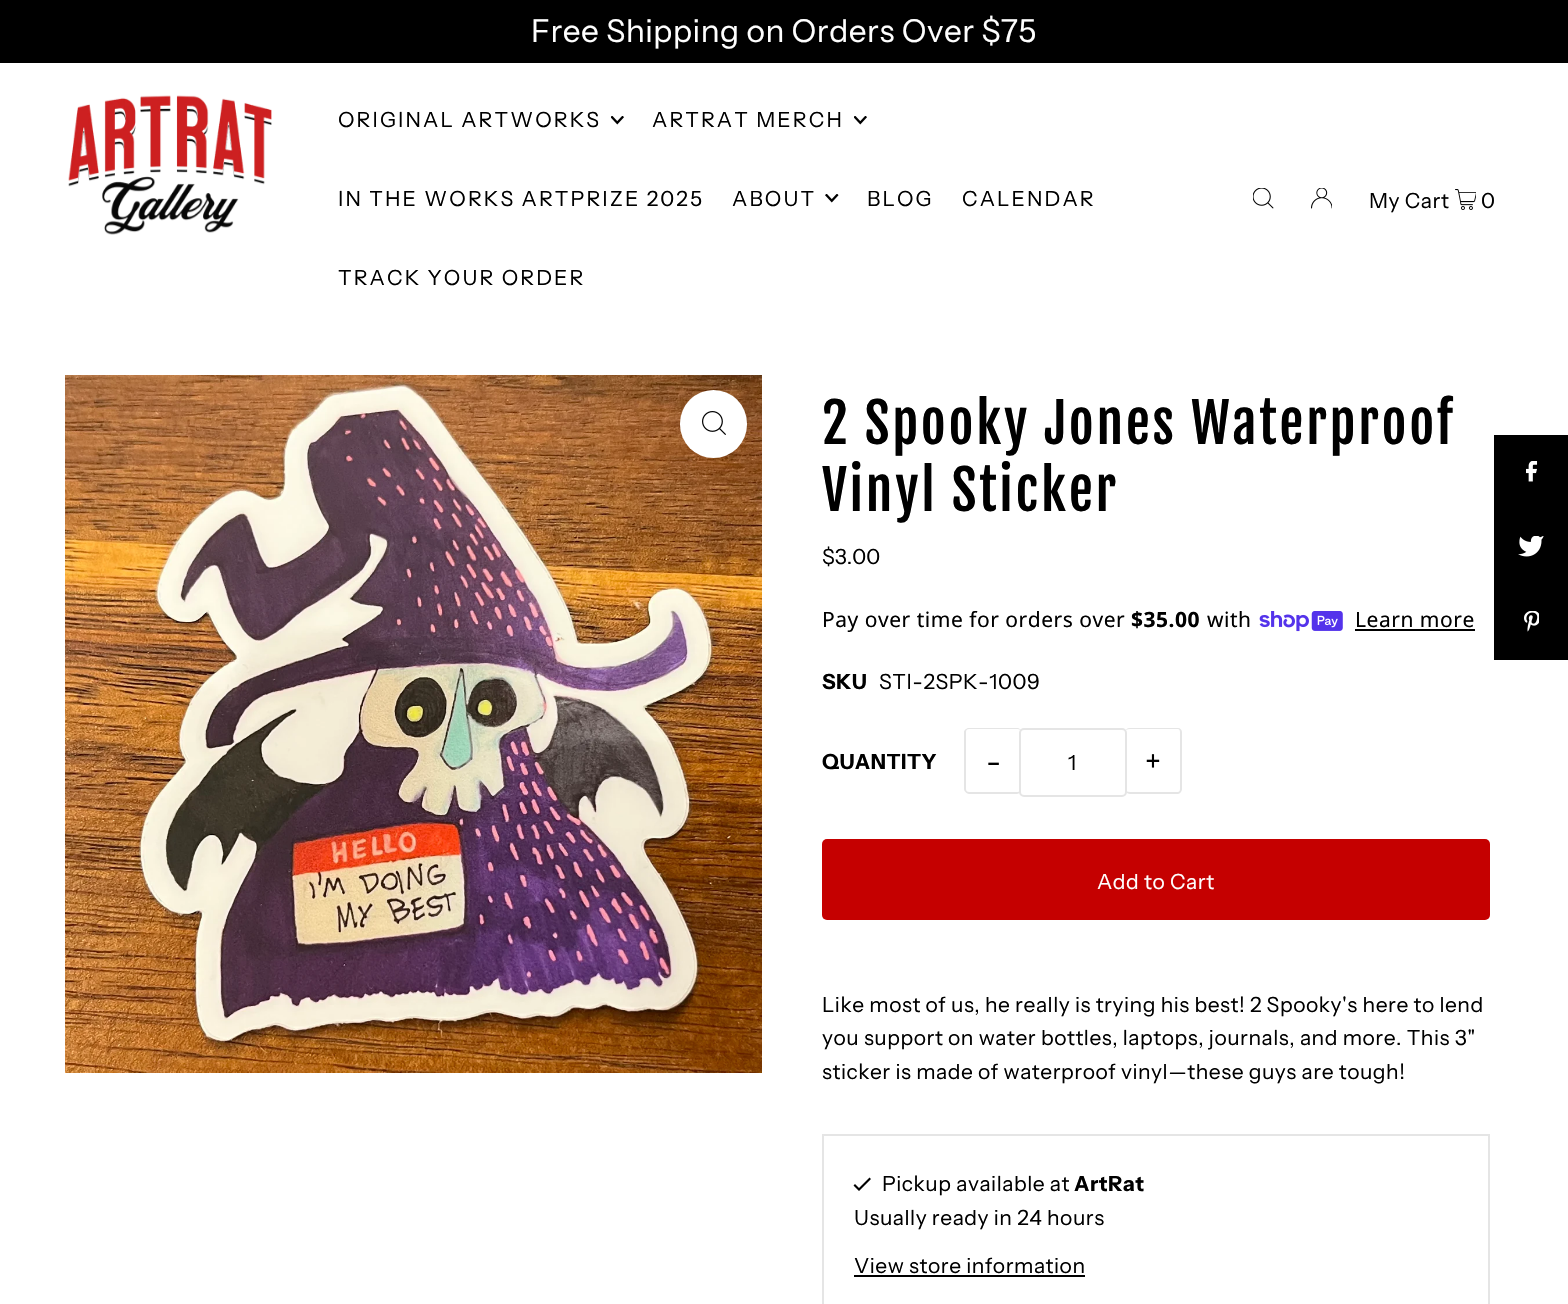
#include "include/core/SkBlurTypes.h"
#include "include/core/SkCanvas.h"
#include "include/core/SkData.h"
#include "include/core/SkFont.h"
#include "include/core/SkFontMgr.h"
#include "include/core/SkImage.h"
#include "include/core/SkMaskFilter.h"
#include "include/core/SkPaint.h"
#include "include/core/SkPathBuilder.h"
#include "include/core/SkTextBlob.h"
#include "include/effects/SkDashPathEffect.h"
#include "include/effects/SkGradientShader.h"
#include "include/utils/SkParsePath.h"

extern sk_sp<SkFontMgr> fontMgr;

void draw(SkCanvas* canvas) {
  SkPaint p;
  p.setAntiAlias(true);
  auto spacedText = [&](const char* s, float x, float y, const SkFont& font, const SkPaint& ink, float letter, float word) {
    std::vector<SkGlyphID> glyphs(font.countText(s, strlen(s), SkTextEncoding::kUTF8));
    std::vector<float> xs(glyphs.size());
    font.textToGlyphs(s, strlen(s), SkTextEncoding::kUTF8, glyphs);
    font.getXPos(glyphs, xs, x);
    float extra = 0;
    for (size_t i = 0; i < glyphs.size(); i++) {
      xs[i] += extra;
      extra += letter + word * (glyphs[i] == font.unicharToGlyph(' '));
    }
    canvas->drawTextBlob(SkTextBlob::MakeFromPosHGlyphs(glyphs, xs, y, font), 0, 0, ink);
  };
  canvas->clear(SK_ColorWHITE);
  p.setColor(SK_ColorBLACK);
  canvas->drawRect(SkRect::MakeLTRB(0, 0, 1568, 63), p);
  canvas->drawImageRect(SkImages::DeferredFromEncodedData(SkData::MakeFromFileName("images/1.png")), SkRect::MakeLTRB(68, 95, 272, 235), SkSamplingOptions());
  canvas->drawImageRect(SkImages::DeferredFromEncodedData(SkData::MakeFromFileName("images/2.png")), SkRect::MakeLTRB(611, 116, 624, 125), SkSamplingOptions());
  canvas->drawImageRect(SkImages::DeferredFromEncodedData(SkData::MakeFromFileName("images/2.png")), SkRect::MakeLTRB(854, 116, 867, 125), SkSamplingOptions());
  canvas->drawImageRect(SkImages::DeferredFromEncodedData(SkData::MakeFromFileName("images/3.png")), SkRect::MakeLTRB(825, 194, 839, 203), SkSamplingOptions());
  canvas->drawImageRect(SkImages::DeferredFromEncodedData(SkData::MakeFromFileName("images/4.png")), SkRect::MakeLTRB(1253, 188, 1274, 209), SkSamplingOptions());
  canvas->drawImageRect(SkImages::DeferredFromEncodedData(SkData::MakeFromFileName("images/5.png")), SkRect::MakeLTRB(1311, 188, 1332, 209), SkSamplingOptions());
  canvas->drawImageRect(SkImages::DeferredFromEncodedData(SkData::MakeFromFileName("images/6.png")), SkRect::MakeLTRB(1455, 189, 1476, 210), SkSamplingOptions());
  canvas->drawImageRect(SkImages::DeferredFromEncodedData(SkData::MakeFromFileName("images/7.png")), SkRect::MakeLTRB(65, 375, 762, 1073), SkSamplingOptions());
  p.setColor(SK_ColorWHITE);
  canvas->drawRoundRect(SkRect::MakeLTRB(680, 390, 747, 458), 33.5f, 33.5f, p);
  canvas->drawImageRect(SkImages::DeferredFromEncodedData(SkData::MakeFromFileName("images/8.png")), SkRect::MakeLTRB(702, 411, 726, 435), SkSamplingOptions());
  canvas->drawImageRect(SkImages::DeferredFromEncodedData(SkData::MakeFromFileName("images/9.png")), SkRect::MakeLTRB(1259, 611, 1343, 632), SkSamplingOptions());
  p.setColor(SK_ColorBLACK);
  canvas->drawRect(SkRect::MakeLTRB(1355, 629, 1475, 631), p);
  p.setColor(SkColorSetRGB(229, 229, 229));
  canvas->drawPath(SkPathBuilder(SkPathFillType::kEvenOdd).moveTo(969, 728).lineTo(1017, 728).cubicTo(1019, 728, 1022, 730, 1022, 732).lineTo(1022, 789).cubicTo(1022, 791, 1019, 794, 1017, 794).lineTo(969, 794).cubicTo(967, 794, 964, 791, 964, 789).lineTo(964, 732).cubicTo(964, 730, 967, 728, 969, 728).close().moveTo(969, 729).lineTo(1017, 729).cubicTo(1019, 729, 1022, 730, 1022, 732).lineTo(1022, 789).cubicTo(1022, 791, 1019, 792, 1017, 792).lineTo(969, 792).cubicTo(967, 792, 966, 791, 966, 789).lineTo(966, 732).cubicTo(966, 730, 967, 729, 969, 729).close().detach(), p);
  p.setColor(SK_ColorWHITE);
  canvas->drawRoundRect(SkRect::MakeLTRB(1020, 729, 1126, 796), 4, 4, p);
  p.setStyle(SkPaint::kStroke_Style);
  p.setStrokeWidth(2);
  p.setColor(SkColorSetRGB(229, 229, 229));
  canvas->drawRoundRect(SkRect::MakeLTRB(1020, 729, 1126, 796), 4, 4, p);
  p.setStyle(SkPaint::kFill_Style);
  canvas->drawPath(SkPathBuilder(SkPathFillType::kEvenOdd).moveTo(1130, 728).lineTo(1178, 728).cubicTo(1180, 728, 1182, 730, 1182, 732).lineTo(1182, 789).cubicTo(1182, 791, 1180, 794, 1178, 794).lineTo(1130, 794).cubicTo(1127, 794, 1125, 791, 1125, 789).lineTo(1125, 732).cubicTo(1125, 730, 1127, 728, 1130, 728).close().moveTo(1130, 729).lineTo(1178, 729).cubicTo(1179, 729, 1180, 730, 1180, 732).lineTo(1180, 789).cubicTo(1180, 791, 1179, 792, 1178, 792).lineTo(1130, 792).cubicTo(1127, 792, 1125, 791, 1125, 789).lineTo(1125, 732).cubicTo(1125, 730, 1127, 729, 1130, 729).close().detach(), p);
  p.setColor(SkColorSetRGB(197, 0, 0));
  canvas->drawRoundRect(SkRect::MakeLTRB(822, 839, 1490, 920), 5, 5, p);
  p.setStyle(SkPaint::kStroke_Style);
  p.setColor(SkColorSetRGB(229, 229, 229));
  canvas->drawRect(SkRect::MakeLTRB(823, 1135, 1489, 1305), p);
  p.setStyle(SkPaint::kFill_Style);
  p.setColor(SK_ColorBLACK);
  canvas->drawPath(SkPathBuilder().moveTo(859, 1188).lineTo(855, 1184).lineTo(853.5f, 1185.5f).lineTo(859, 1191).lineTo(871, 1179).lineTo(869.5f, 1177.5f).close().detach(), p);
  canvas->drawRect(SkRect::MakeLTRB(854, 1275, 1085, 1277), p);
  canvas->drawRect(SkRect::MakeLTRB(1494, 435, 1568, 660), p);
  canvas->drawImageRect(SkImages::DeferredFromEncodedData(SkData::MakeFromFileName("images/10.png")), SkRect::MakeLTRB(1526, 461, 1538, 482), SkSamplingOptions());
  canvas->drawImageRect(SkImages::DeferredFromEncodedData(SkData::MakeFromFileName("images/11.png")), SkRect::MakeLTRB(1518, 536, 1544, 557), SkSamplingOptions());
  canvas->drawImageRect(SkImages::DeferredFromEncodedData(SkData::MakeFromFileName("images/12.png")), SkRect::MakeLTRB(1524, 611, 1539, 632), SkSamplingOptions());
  SkFont font1(fontMgr->matchFamilyStyle("Instrument Sans", SkFontStyle::Normal()), 31.5f);
  font1.setSubpixel(true);
  p.setColor(SK_ColorWHITE);
  spacedText("Free Shipping on Orders Over $75", 531, 42, font1, p, 0.52f, 0);
  SkFont font2(fontMgr->matchFamilyStyle("Instrument Sans", SkFontStyle::Normal()), 21);
  font2.setSubpixel(true);
  p.setColor(SK_ColorBLACK);
  spacedText("ORIGINAL ARTWORKS", 338, 127, font2, p, 2.1f, 0);
  spacedText("ARTRAT MERCH", 652, 127, font2, p, 2.1f, 0);
  spacedText("IN THE WORKS ARTPRIZE 2025", 338, 206, font2, p, 2.1f, 0);
  spacedText("ABOUT", 732, 206, font2, p, 2.1f, 0);
  spacedText("BLOG", 867, 206, font2, p, 2.1f, 0);
  spacedText("CALENDAR", 962, 206, font2, p, 2.1f, 0);
  spacedText("TRACK YOUR ORDER", 338, 285, font2, p, 2.1f, 0);
  spacedText("My Cart", 1369, 208, font2, p, 0.52f, 0);
  spacedText("0", 1481, 208, font2, p, 0.52f, 0);
  SkFont font3(fontMgr->matchFamilyStyle("Fjalla One", SkFontStyle::Normal()), 54);
  font3.setSubpixel(true);
  spacedText("2 Spooky Jones Waterproof", 822, 444, font3, p, 2.7f, 0);
  spacedText("Vinyl Sticker", 822, 511, font3, p, 2.7f, 0);
  canvas->drawString("$3.00", 822, 564, font2, p);
  SkFont font4(fontMgr->matchFamilyStyle("Noto Sans", SkFontStyle::Normal()), 21);
  font4.setSubpixel(true);
  spacedText("Pay over time for orders over", 822, 627, font4, p, 0.52f, 0);
  SkFont font5(fontMgr->matchFamilyStyle("Noto Sans", SkFontStyle::Bold()), 21);
  font5.setSubpixel(true);
  spacedText("$35.00", 1131, 627, font5, p, 0.52f, 0);
  spacedText("with", 1207, 627, font4, p, 0.52f, 0);
  spacedText("Learn more", 1355, 627, font4, p, 0.52f, 0);
  SkFont font6(fontMgr->matchFamilyStyle("Instrument Sans", SkFontStyle::Bold()), 21);
  font6.setSubpixel(true);
  spacedText("SKU", 822, 689, font6, p, 0.52f, 0);
  spacedText("STI-2SPK-1009", 879, 689, font2, p, 0.52f, 0);
  spacedText("QUANTITY", 822, 769, font6, p, 0.52f, 0);
  SkFont font7(fontMgr->matchFamilyStyle("Instrument Sans", SkFontStyle::Normal()), 30);
  font7.setSubpixel(true);
  spacedText("-", 986, 772, font7, p, 1, 0);
  spacedText("1", 1068, 770, font2, p, 0.52f, 0);
  spacedText("+", 1145, 772, font7, p, 1, 0);
  p.setColor(SK_ColorWHITE);
  spacedText("Add to Cart", 1097, 889, font2, p, 0.52f, 0);
  p.setColor(SK_ColorBLACK);
  spacedText("Like most of us, he really is trying his best! 2 Spooky's here to lend", 822, 1012, font2, p, 0.52f, 0);
  spacedText("you support on water bottles, laptops, journals, and more. This 3\"", 822, 1045, font2, p, 0.52f, 0);
  spacedText("sticker is made of waterproof vinyl—these guys are tough!", 822, 1079, font2, p, 0.52f, 0);
  spacedText("Pickup available at", 882, 1191, font2, p, 0.52f, 0);
  spacedText("ArtRat", 1074, 1191, font6, p, 0.52f, 0);
  spacedText("Usually ready in 24 hours", 854, 1225, font2, p, 0.52f, 0);
  spacedText("View store information", 854, 1273, font2, p, 0.52f, 0);
}
